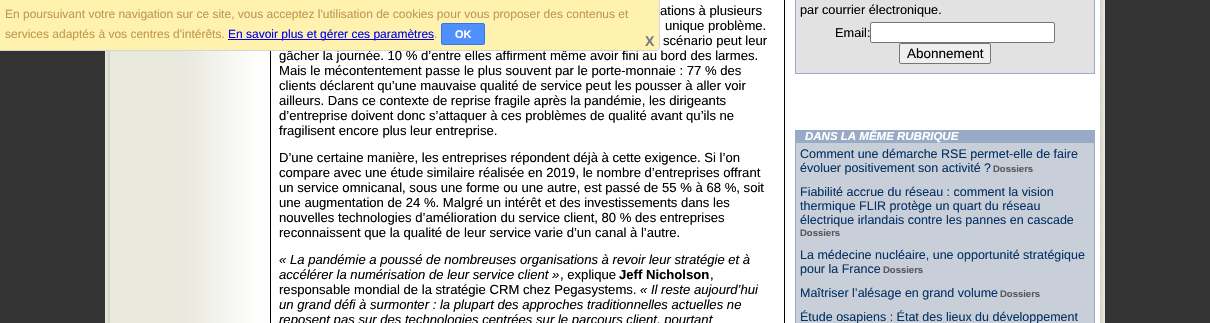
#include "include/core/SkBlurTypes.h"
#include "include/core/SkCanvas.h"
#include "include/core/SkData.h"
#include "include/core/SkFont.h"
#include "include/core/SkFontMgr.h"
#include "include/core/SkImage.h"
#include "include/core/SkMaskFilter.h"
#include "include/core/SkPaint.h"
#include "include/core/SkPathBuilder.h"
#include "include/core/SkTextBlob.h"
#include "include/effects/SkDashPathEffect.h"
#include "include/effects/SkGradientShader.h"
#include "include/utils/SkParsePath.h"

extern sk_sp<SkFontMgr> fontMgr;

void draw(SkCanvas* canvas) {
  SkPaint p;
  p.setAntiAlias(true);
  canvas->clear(SkColorSetRGB(51, 51, 51));
  canvas->drawImageRect(SkImages::DeferredFromEncodedData(SkData::MakeFromFileName("images/1.png")), SkRect::MakeLTRB(105, 0, 1105, 323), SkSamplingOptions());
  p.setColor(SK_ColorBLACK);
  canvas->drawRect(SkRect::MakeLTRB(784, 0, 785, 323), p);
  canvas->drawRect(SkRect::MakeLTRB(270, 51, 271, 323), p);
  p.setColor(SkColorSetRGB(226, 226, 227));
  canvas->drawRect(SkRect::MakeLTRB(795.5f, -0.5f, 1094.5f, 73.5f), p);
  p.setStyle(SkPaint::kStroke_Style);
  p.setStrokeWidth(1);
  p.setColor(SkColorSetRGB(153, 170, 198));
  canvas->drawRect(SkRect::MakeLTRB(795.5f, -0.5f, 1094.5f, 73.5f), p);
  p.setStyle(SkPaint::kFill_Style);
  p.setColor(SK_ColorWHITE);
  canvas->drawRoundRect(SkRect::MakeLTRB(870.5f, 22.5f, 1054.5f, 42.5f), 1.5f, 1.5f, p);
  p.setStyle(SkPaint::kStroke_Style);
  p.setColor(SkColorSetRGB(118, 118, 118));
  canvas->drawRoundRect(SkRect::MakeLTRB(870.5f, 22.5f, 1054.5f, 42.5f), 1.5f, 1.5f, p);
  p.setStyle(SkPaint::kFill_Style);
  p.setColor(SkColorSetRGB(239, 239, 239));
  canvas->drawRoundRect(SkRect::MakeLTRB(899.5f, 43.5f, 990.5f, 63.5f), 1.5f, 1.5f, p);
  p.setStyle(SkPaint::kStroke_Style);
  p.setColor(SkColorSetRGB(118, 118, 118));
  canvas->drawRoundRect(SkRect::MakeLTRB(899.5f, 43.5f, 990.5f, 63.5f), 1.5f, 1.5f, p);
  p.setStyle(SkPaint::kFill_Style);
  p.setColor(SkColorSetRGB(153, 170, 198));
  canvas->drawRect(SkRect::MakeLTRB(795, 130, 1095, 142), p);
  p.setColor(SkColorSetRGB(201, 207, 217));
  canvas->drawRect(SkRect::MakeLTRB(795.5f, 142.5f, 1094.5f, 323.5f), p);
  p.setStyle(SkPaint::kStroke_Style);
  p.setColor(SkColorSetRGB(153, 170, 198));
  canvas->drawRect(SkRect::MakeLTRB(795.5f, 142.5f, 1094.5f, 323.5f), p);
  p.setStyle(SkPaint::kFill_Style);
  p.setColor(SkColorSetRGB(255, 241, 174));
  canvas->drawPath(SkPathBuilder().moveTo(0, 0).lineTo(659, 0).lineTo(659, 47).cubicTo(659, 48.5f, 657.5f, 50, 656, 50).lineTo(0, 50).close().detach(), p);
  SkFont font1(fontMgr->matchFamilyStyle("Liberation Sans", SkFontStyle::Normal()), 13.1f);
  font1.setSubpixel(true);
  p.setColor(SK_ColorBLACK);
  canvas->drawString("ations à plusieurs", 660, 15, font1, p);
  canvas->drawString("unique problème.", 665, 30, font1, p);
  canvas->drawString("scénario peut leur", 663, 45, font1, p);
  canvas->drawString("gâcher la journée. 10 % d’entre elles affirment même avoir fini au bord des larmes.", 279, 60, font1, p);
  canvas->drawString("Mais le mécontentement passe le plus souvent par le porte-monnaie : 77 % des", 279, 75, font1, p);
  canvas->drawString("clients déclarent qu’une mauvaise qualité de service peut les pousser à aller voir", 279, 90, font1, p);
  canvas->drawString("ailleurs. Dans ce contexte de reprise fragile après la pandémie, les dirigeants", 279, 105, font1, p);
  canvas->drawString("d’entreprise doivent donc s’attaquer à ces problèmes de qualité avant qu’ils ne", 279, 120, font1, p);
  canvas->drawString("fragilisent encore plus leur entreprise.", 279, 135, font1, p);
  canvas->drawString("D’une certaine manière, les entreprises répondent déjà à cette exigence. Si l’on", 279, 162, font1, p);
  canvas->drawString("compare avec une étude similaire réalisée en 2019, le nombre d’entreprises offrant", 279, 177, font1, p);
  canvas->drawString("un service omnicanal, sous une forme ou une autre, est passé de 55 % à 68 %, soit", 279, 192, font1, p);
  canvas->drawString("une augmentation de 24 %. Malgré un intérêt et des investissements dans les", 279, 207, font1, p);
  canvas->drawString("nouvelles technologies d’amélioration du service client, 80 % des entreprises", 279, 222, font1, p);
  canvas->drawString("reconnaissent que la qualité de leur service varie d’un canal à l’autre.", 279, 237, font1, p);
  SkFont font2(fontMgr->matchFamilyStyle("Liberation Sans", SkFontStyle::Italic()), 13.1f);
  font2.setSubpixel(true);
  canvas->drawString("« La pandémie a poussé de nombreuses organisations à revoir leur stratégie et à", 279, 264, font2, p);
  canvas->drawString("accélérer la numérisation de leur service client »", 279, 279, font2, p);
  canvas->drawString(", explique", 560, 279, font1, p);
  SkFont font3(fontMgr->matchFamilyStyle("Liberation Sans", SkFontStyle::Bold()), 13.1f);
  font3.setSubpixel(true);
  canvas->drawString("Jeff Nicholson", 619, 279, font3, p);
  canvas->drawString(",", 710, 279, font1, p);
  canvas->drawString("responsable mondial de la stratégie CRM chez Pegasystems.", 279, 294, font1, p);
  canvas->drawString("« Il reste aujourd’hui", 640, 294, font2, p);
  canvas->drawString("un grand défi à surmonter : la plupart des approches traditionnelles actuelles ne", 279, 309, font2, p);
  canvas->drawString("reposent pas sur des technologies centrées sur le parcours client, pourtant", 279, 324, font2, p);
  SkFont font4(fontMgr->matchFamilyStyle("Liberation Sans", SkFontStyle::Normal()), 12.75f);
  font4.setSubpixel(true);
  canvas->drawString("par courrier électronique.", 800, 14, font4, p);
  canvas->drawString("Email:", 835, 37, font4, p);
  SkFont font5(fontMgr->matchFamilyStyle("Liberation Sans", SkFontStyle::Normal()), 13.5f);
  font5.setSubpixel(true);
  canvas->drawString("Abonnement", 907, 58, font5, p);
  SkFont font6(fontMgr->matchFamilyStyle("Liberation Sans", SkFontStyle::BoldItalic()), 11.5f);
  font6.setSubpixel(true);
  p.setColor(SK_ColorWHITE);
  canvas->drawString("DANS LA MÊME RUBRIQUE", 805, 140, font6, p);
  SkFont font7(fontMgr->matchFamilyStyle("Liberation Sans", SkFontStyle::Normal()), 12.5f);
  font7.setSubpixel(true);
  p.setColor(SkColorSetRGB(6, 51, 102));
  canvas->drawString("Comment une démarche RSE permet-elle de faire", 800, 158, font7, p);
  canvas->drawString("évoluer positivement son activité ?", 800, 172, font7, p);
  SkFont font8(fontMgr->matchFamilyStyle("Liberation Sans", SkFontStyle::Bold()), 9.5f);
  font8.setSubpixel(true);
  p.setColor(SkColorSetRGB(88, 89, 90));
  canvas->drawString("Dossiers", 993, 172, font8, p);
  p.setColor(SkColorSetRGB(6, 51, 102));
  canvas->drawString("Fiabilité accrue du réseau : comment la vision", 800, 196, font7, p);
  canvas->drawString("thermique FLIR protège un quart du réseau", 800, 210, font7, p);
  canvas->drawString("électrique irlandais contre les pannes en cascade", 800, 224, font7, p);
  p.setColor(SkColorSetRGB(88, 89, 90));
  canvas->drawString("Dossiers", 800, 236, font8, p);
  p.setColor(SkColorSetRGB(6, 51, 102));
  canvas->drawString("La médecine nucléaire, une opportunité stratégique", 800, 259, font7, p);
  canvas->drawString("pour la France", 800, 273, font7, p);
  p.setColor(SkColorSetRGB(88, 89, 90));
  canvas->drawString("Dossiers", 883, 273, font8, p);
  p.setColor(SkColorSetRGB(6, 51, 102));
  canvas->drawString("Maîtriser l’alésage en grand volume", 800, 297, font7, p);
  p.setColor(SkColorSetRGB(88, 89, 90));
  canvas->drawString("Dossiers", 1000, 297, font8, p);
  p.setColor(SkColorSetRGB(6, 51, 102));
  canvas->drawString("Étude osapiens : État des lieux du développement", 800, 321, font7, p);
  p.setColor(SkColorSetRGB(210, 214, 219));
  canvas->drawPath(SkPathBuilder(SkPathFillType::kEvenOdd).moveTo(0, 0).lineTo(660, 0).lineTo(660, 47).cubicTo(660, 49, 658, 51, 656, 51).lineTo(0, 51).close().moveTo(0, 0).lineTo(659, 0).lineTo(659, 47).cubicTo(659, 49, 658, 50, 656, 50).lineTo(0, 50).close().detach(), p);
  SkFont font9(fontMgr->matchFamilyStyle("Liberation Sans", SkFontStyle::Normal()), 12);
  font9.setSubpixel(true);
  p.setColor(SkColorSetRGB(192, 152, 83));
  canvas->drawString("En poursuivant votre navigation sur ce site, vous acceptez l'utilisation de cookies pour vous proposer des contenus et", 5, 18, font9, p);
  canvas->drawString("services adaptés à vos centres d'intérêts.", 5, 38, font9, p);
  p.setColor(SkColorSetRGB(0, 0, 238));
  canvas->drawRect(SkRect::MakeLTRB(228, 39, 434, 40), p);
  canvas->drawString("En savoir plus et gérer ces paramètres", 228, 38, font9, p);
  p.setColor(SkColorSetRGB(192, 152, 83));
  canvas->drawString(".", 434, 38, font9, p);
  p.setColor(SkColorSetRGB(77, 144, 254));
  canvas->drawRoundRect(SkRect::MakeLTRB(441.5f, 23.5f, 484.5f, 44.5f), 1.5f, 1.5f, p);
  p.setStyle(SkPaint::kStroke_Style);
  p.setColor(SkColorSetRGB(48, 121, 237));
  canvas->drawRoundRect(SkRect::MakeLTRB(441.5f, 23.5f, 484.5f, 44.5f), 1.5f, 1.5f, p);
  SkFont font10(fontMgr->matchFamilyStyle("Liberation Sans", SkFontStyle::Bold()), 11);
  font10.setSubpixel(true);
  p.setStyle(SkPaint::kFill_Style);
  p.setColor(SK_ColorWHITE);
  canvas->drawString("OK", 455, 38, font10, p);
  SkFont font11(fontMgr->matchFamilyStyle("Liberation Sans", SkFontStyle::Bold()), 14);
  font11.setSubpixel(true);
  p.setColor(SkColorSetRGB(116, 123, 131));
  canvas->drawString("X", 645, 46, font11, p);
}
